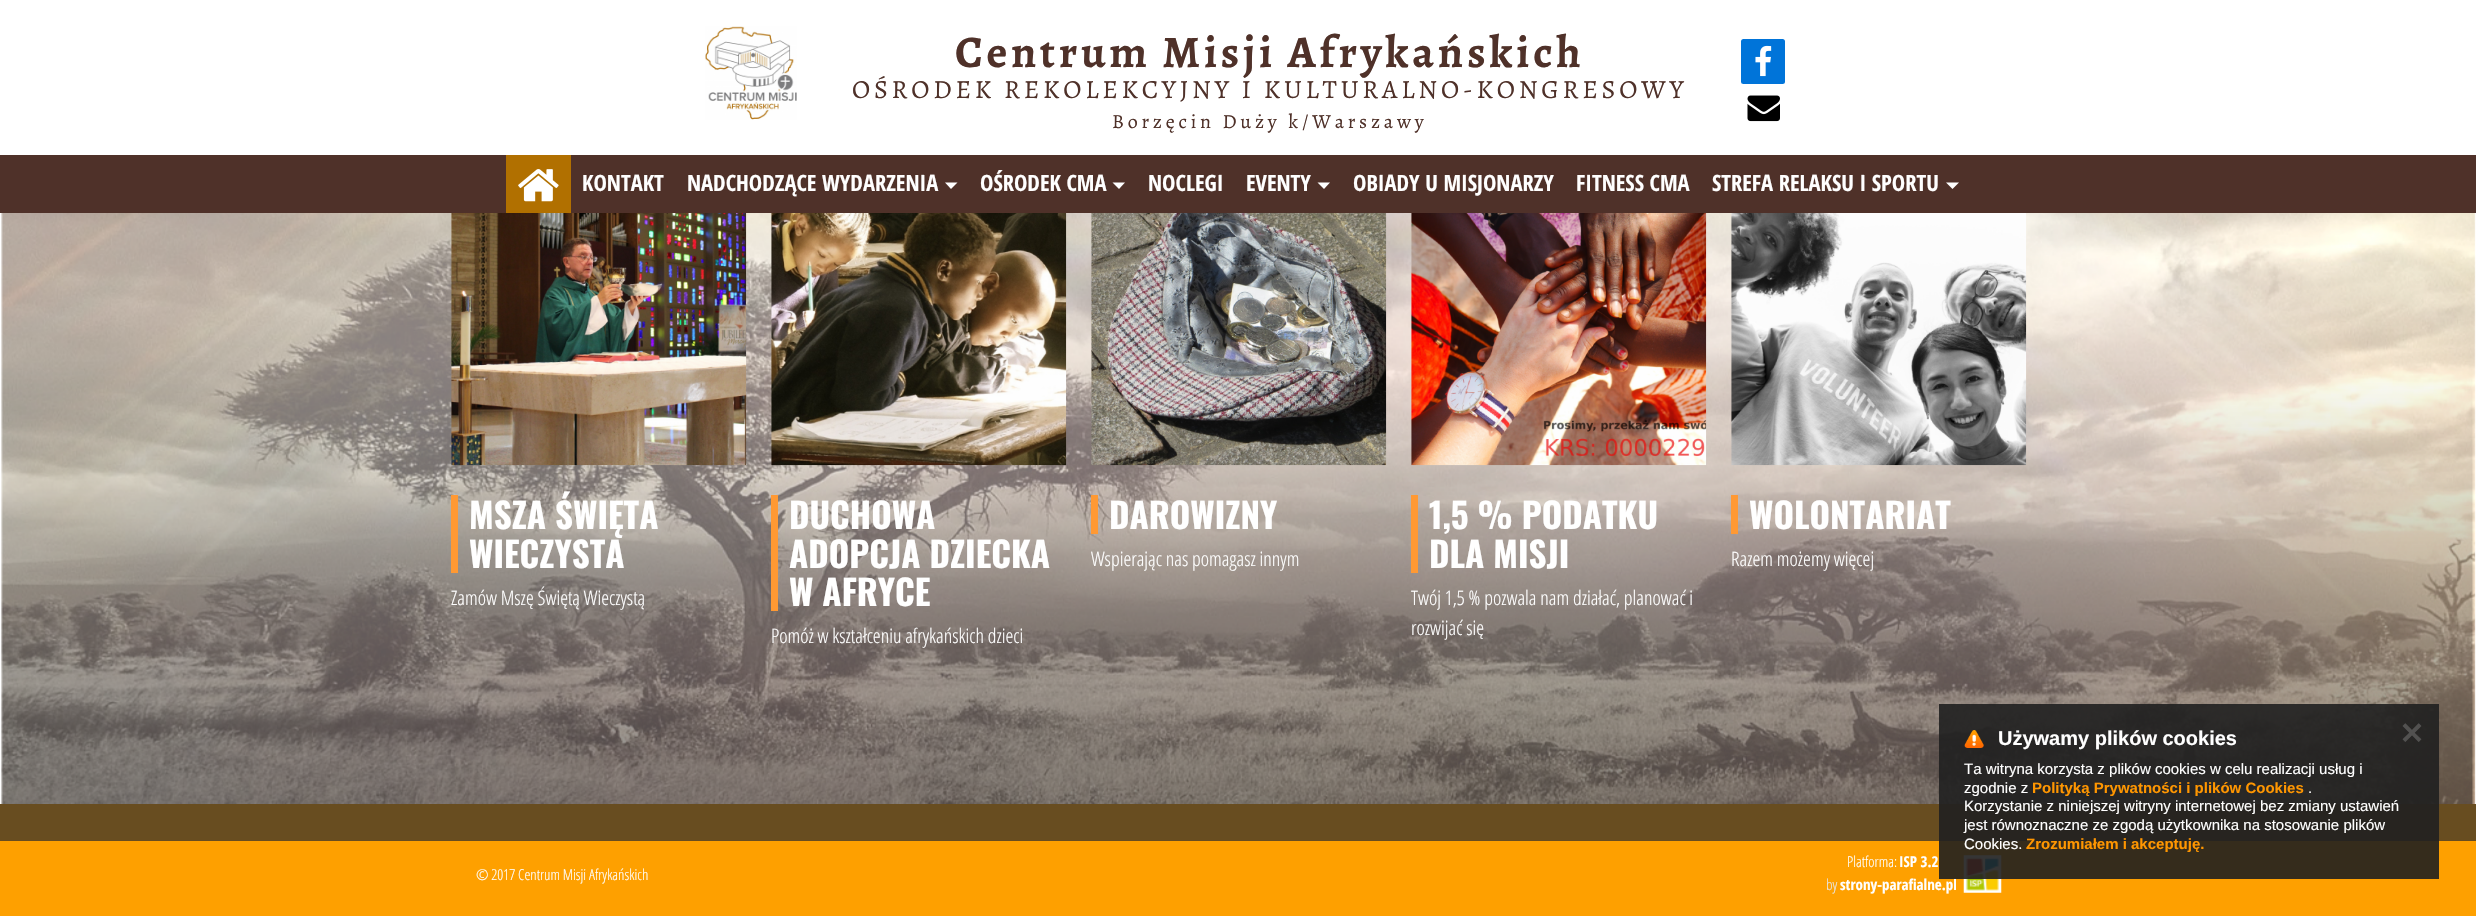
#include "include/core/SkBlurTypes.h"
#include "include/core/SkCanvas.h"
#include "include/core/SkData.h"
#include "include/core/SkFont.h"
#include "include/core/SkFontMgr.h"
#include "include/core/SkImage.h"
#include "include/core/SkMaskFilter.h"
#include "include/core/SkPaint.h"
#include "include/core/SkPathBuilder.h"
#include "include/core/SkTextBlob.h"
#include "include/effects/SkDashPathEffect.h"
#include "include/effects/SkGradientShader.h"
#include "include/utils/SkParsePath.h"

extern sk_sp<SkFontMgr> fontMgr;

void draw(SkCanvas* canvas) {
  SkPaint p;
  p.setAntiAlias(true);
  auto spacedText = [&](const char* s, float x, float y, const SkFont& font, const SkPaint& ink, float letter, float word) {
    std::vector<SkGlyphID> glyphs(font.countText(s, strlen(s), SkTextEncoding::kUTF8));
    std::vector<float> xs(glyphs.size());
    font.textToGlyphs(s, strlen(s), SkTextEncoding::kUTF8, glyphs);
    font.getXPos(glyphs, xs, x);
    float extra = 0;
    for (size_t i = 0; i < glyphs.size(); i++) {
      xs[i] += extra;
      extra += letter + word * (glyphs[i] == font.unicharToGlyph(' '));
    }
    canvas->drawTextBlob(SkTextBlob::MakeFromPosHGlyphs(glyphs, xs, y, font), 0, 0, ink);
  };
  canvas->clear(SK_ColorWHITE);
  canvas->drawImageRect(SkImages::DeferredFromEncodedData(SkData::MakeFromFileName("images/1.png")), SkRect::MakeLTRB(705, 26, 797, 120), SkSamplingOptions());
  p.setColor(SkColorSetRGB(0, 116, 217));
  canvas->drawRoundRect(SkRect::MakeLTRB(1741, 39, 1785, 84), 2.5f, 2.5f, p);
  canvas->drawImageRect(SkImages::DeferredFromEncodedData(SkData::MakeFromFileName("images/2.png")), SkRect::MakeLTRB(1755, 45, 1772, 77), SkSamplingOptions());
  canvas->drawImageRect(SkImages::DeferredFromEncodedData(SkData::MakeFromFileName("images/3.png")), SkRect::MakeLTRB(1747, 95, 1780, 122), SkSamplingOptions());
  p.setColor(SkColorSetRGB(79, 49, 41));
  canvas->drawRect(SkRect::MakeLTRB(0, 155, 2476, 213), p);
  p.setColor(SkColorSetRGB(177, 112, 0));
  canvas->drawRect(SkRect::MakeLTRB(506, 155, 571, 213), p);
  canvas->drawImageRect(SkImages::DeferredFromEncodedData(SkData::MakeFromFileName("images/4.png")), SkRect::MakeLTRB(518, 169, 559, 202), SkSamplingOptions());
  p.setColor(SK_ColorWHITE);
  canvas->drawPath(SkPathBuilder().moveTo(945, 182.5f).lineTo(957.5f, 182.5f).lineTo(951, 189).close().detach(), p);
  canvas->drawPath(SkPathBuilder().moveTo(1112.5f, 182.5f).lineTo(1125, 182.5f).lineTo(1119, 189).close().detach(), p);
  canvas->drawPath(SkPathBuilder().moveTo(1317.5f, 182.5f).lineTo(1330, 182.5f).lineTo(1324, 189).close().detach(), p);
  canvas->drawPath(SkPathBuilder().moveTo(1946, 182.5f).lineTo(1959, 182.5f).lineTo(1952.5f, 189).close().detach(), p);
  canvas->drawImageRect(SkImages::DeferredFromEncodedData(SkData::MakeFromFileName("images/5.png")), SkRect::MakeLTRB(1, 213, 2476, 804), SkSamplingOptions());
  canvas->drawImageRect(SkImages::DeferredFromEncodedData(SkData::MakeFromFileName("images/6.png")), SkRect::MakeLTRB(451, 213, 747, 466), SkSamplingOptions());
  p.setColor(SkColorSetRGB(255, 153, 51));
  canvas->drawRect(SkRect::MakeLTRB(451, 495, 458, 573), p);
  canvas->drawImageRect(SkImages::DeferredFromEncodedData(SkData::MakeFromFileName("images/7.png")), SkRect::MakeLTRB(771, 213, 1067, 466), SkSamplingOptions());
  canvas->drawRect(SkRect::MakeLTRB(771, 495, 778, 611), p);
  canvas->drawImageRect(SkImages::DeferredFromEncodedData(SkData::MakeFromFileName("images/8.png")), SkRect::MakeLTRB(1091, 213, 1387, 466), SkSamplingOptions());
  canvas->drawRect(SkRect::MakeLTRB(1091, 495, 1098, 534), p);
  canvas->drawImageRect(SkImages::DeferredFromEncodedData(SkData::MakeFromFileName("images/9.png")), SkRect::MakeLTRB(1411, 213, 1707, 466), SkSamplingOptions());
  canvas->drawRect(SkRect::MakeLTRB(1411, 495, 1418, 573), p);
  canvas->drawImageRect(SkImages::DeferredFromEncodedData(SkData::MakeFromFileName("images/10.png")), SkRect::MakeLTRB(1731, 213, 2027, 466), SkSamplingOptions());
  canvas->drawRect(SkRect::MakeLTRB(1731, 495, 1738, 534), p);
  p.setColor(SkColorSetRGB(104, 77, 32));
  canvas->drawRect(SkRect::MakeLTRB(0, 804, 2476, 841), p);
  p.setColor(SkColorSetRGB(254, 160, 0));
  canvas->drawRect(SkRect::MakeLTRB(0, 841, 2476, 916), p);
  canvas->drawImageRect(SkImages::DeferredFromEncodedData(SkData::MakeFromFileName("images/12.png")), SkRect::MakeLTRB(1963, 855, 2002, 893), SkSamplingOptions());
  SkFont font1(fontMgr->matchFamilyStyle("Alegreya", SkFontStyle::Bold()), 45);
  font1.setSubpixel(true);
  p.setColor(SkColorSetRGB(79, 49, 41));
  spacedText("Centrum Misji Afrykańskich", 955, 67, font1, p, 3.75f, 0);
  SkFont font2(fontMgr->matchFamilyStyle("Alegreya", SkFontStyle::Normal()), 26.25f);
  font2.setSubpixel(true);
  spacedText("OŚRODEK REKOLEKCYJNY I KULTURALNO-KONGRESOWY", 852, 98, font2, p, 3.75f, 0);
  SkFont font3(fontMgr->matchFamilyStyle("Alegreya", SkFontStyle::Normal()), 20);
  font3.setSubpixel(true);
  spacedText("Borzęcin Duży k/Warszawy", 1112, 128, font3, p, 3.75f, 0);
  SkFont font4(fontMgr->matchFamilyStyle("Open Sans Condensed", SkFontStyle::Bold()), 22.5f);
  font4.setSubpixel(true);
  p.setColor(SK_ColorWHITE);
  canvas->drawString("KONTAKT", 582, 191, font4, p);
  canvas->drawString("NADCHODZĄCE WYDARZENIA", 687, 191, font4, p);
  canvas->drawString("OŚRODEK CMA", 980, 191, font4, p);
  canvas->drawString("NOCLEGI", 1148, 191, font4, p);
  canvas->drawString("EVENTY", 1246, 191, font4, p);
  canvas->drawString("OBIADY U MISJONARZY", 1353, 191, font4, p);
  canvas->drawString("FITNESS CMA", 1576, 191, font4, p);
  canvas->drawString("STREFA RELAKSU I SPORTU", 1712, 191, font4, p);
  SkFont font5(fontMgr->matchFamilyStyle("Oswald", SkFontStyle::Bold()), 35);
  font5.setSubpixel(true);
  canvas->drawString("MSZA ŚWIĘTA", 469, 529, font5, p);
  canvas->drawString("WIECZYSTA", 469, 568, font5, p);
  SkFont font6(fontMgr->matchFamilyStyle("Open Sans Condensed", SkFontStyle(300, SkFontStyle::kNormal_Width, SkFontStyle::kUpright_Slant)), 20);
  font6.setSubpixel(true);
  canvas->drawString("Zamów Mszę Świętą Wieczystą", 451, 605, font6, p);
  canvas->drawString("DUCHOWA", 789, 529, font5, p);
  canvas->drawString("ADOPCJA DZIECKA", 789, 568, font5, p);
  canvas->drawString("W AFRYCE", 789, 606, font5, p);
  canvas->drawString("Pomóż w kształceniu afrykańskich dzieci", 771, 643, font6, p);
  canvas->drawString("DAROWIZNY", 1109, 529, font5, p);
  canvas->drawString("Wspierając nas pomagasz innym", 1091, 566, font6, p);
  canvas->drawString("1,5 % PODATKU", 1429, 529, font5, p);
  canvas->drawString("DLA MISJI", 1429, 568, font5, p);
  canvas->drawString("Twój 1,5 % pozwala nam działać, planować i", 1411, 605, font6, p);
  canvas->drawString("rozwijać się", 1411, 635, font6, p);
  canvas->drawString("WOLONTARIAT", 1749, 529, font5, p);
  canvas->drawString("Razem możemy więcej", 1731, 566, font6, p);
  SkFont font7(fontMgr->matchFamilyStyle("Open Sans Condensed", SkFontStyle(300, SkFontStyle::kNormal_Width, SkFontStyle::kUpright_Slant)), 15);
  font7.setSubpixel(true);
  canvas->drawString("© 2017 Centrum Misji Afrykańskich", 476, 880, font7, p);
  canvas->drawString("Platforma:", 1847, 867, font7, p);
  SkFont font8(fontMgr->matchFamilyStyle("Open Sans Condensed", SkFontStyle::Bold()), 15);
  font8.setSubpixel(true);
  canvas->drawString("ISP 3.2", 1899, 867, font8, p);
  p.setColor(SkColorSetRGB(231, 231, 231));
  canvas->drawString("by", 1826, 890, font7, p);
  p.setColor(SK_ColorWHITE);
  canvas->drawString("strony-parafialne.pl", 1840, 890, font8, p);
  p.setColor(SkColorSetARGB(230, 31, 31, 31));
  canvas->drawRect(SkRect::MakeLTRB(1939, 704, 2439, 879), p);
  SkFont font9(fontMgr->matchFamilyStyle("DejaVu Sans", SkFontStyle::Bold()), 30);
  font9.setSubpixel(true);
  p.setColor(SkColorSetRGB(82, 81, 80));
  canvas->drawString("✕", 2399, 744, font9, p);
  SkFont font10(fontMgr->matchFamilyStyle("Liberation Sans", SkFontStyle::Bold()), 15);
  font10.setSubpixel(true);
  p.setColor(SkColorSetRGB(255, 150, 0));
  canvas->drawString("Zrozumiałem i akceptuję.", 2026, 849, font10, p);
  SkFont font11(fontMgr->matchFamilyStyle("Liberation Sans", SkFontStyle::Normal()), 15);
  font11.setSubpixel(true);
  p.setColor(SK_ColorWHITE);
  canvas->drawString("Cookies.", 1964, 849, font11, p);
  canvas->drawString("jest równoznaczne ze zgodą użytkownika na stosowanie plików", 1964, 830, font11, p);
  canvas->drawString("Korzystanie z niniejszej witryny internetowej bez zmiany ustawień", 1964, 811, font11, p);
  canvas->drawString(".", 2308, 793, font11, p);
  p.setColor(SkColorSetRGB(255, 150, 0));
  canvas->drawString("Polityką Prywatności i plików Cookies", 2032, 793, font10, p);
  p.setColor(SK_ColorWHITE);
  canvas->drawString("zgodnie z", 1964, 793, font11, p);
  canvas->drawString("Ta witryna korzysta z plików cookies w celu realizacji usług i", 1964, 774, font11, p);
  SkFont font12(fontMgr->matchFamilyStyle("Liberation Sans", SkFontStyle::Bold()), 20);
  font12.setSubpixel(true);
  canvas->drawString("Używamy plików cookies", 1998, 745, font12, p);
  canvas->drawImageRect(SkImages::DeferredFromEncodedData(SkData::MakeFromFileName("images/11.png")), SkRect::MakeLTRB(1964, 730, 1984, 748), SkSamplingOptions());
}
